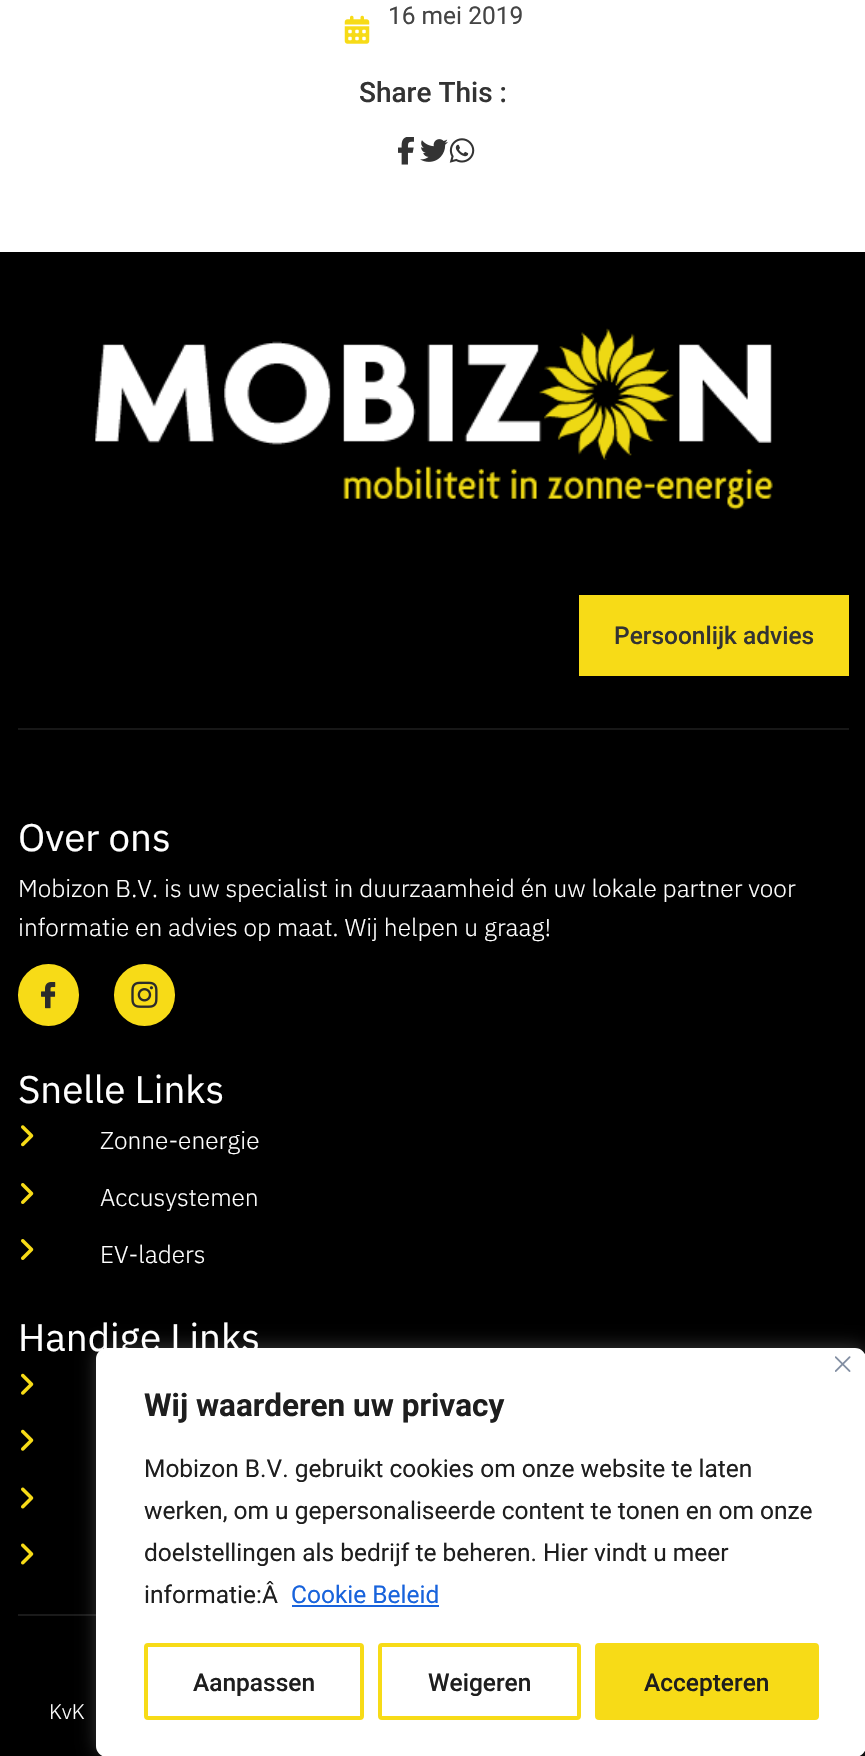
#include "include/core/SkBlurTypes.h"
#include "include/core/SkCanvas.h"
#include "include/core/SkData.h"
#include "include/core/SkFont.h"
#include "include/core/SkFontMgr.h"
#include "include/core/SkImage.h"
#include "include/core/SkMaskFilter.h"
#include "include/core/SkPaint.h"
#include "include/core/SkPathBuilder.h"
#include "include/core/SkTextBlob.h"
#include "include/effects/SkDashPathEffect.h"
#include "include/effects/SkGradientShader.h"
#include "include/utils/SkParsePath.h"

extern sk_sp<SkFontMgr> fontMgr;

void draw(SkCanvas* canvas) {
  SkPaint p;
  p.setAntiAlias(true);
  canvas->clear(SK_ColorWHITE);
  canvas->drawImageRect(SkImages::DeferredFromEncodedData(SkData::MakeFromFileName("images/1.png")), SkRect::MakeLTRB(344, 15, 370, 44), SkSamplingOptions());
  canvas->drawImageRect(SkImages::DeferredFromEncodedData(SkData::MakeFromFileName("images/2.png")), SkRect::MakeLTRB(398, 137, 414, 165), SkSamplingOptions());
  canvas->drawImageRect(SkImages::DeferredFromEncodedData(SkData::MakeFromFileName("images/3.png")), SkRect::MakeLTRB(420, 139, 448, 162), SkSamplingOptions());
  canvas->drawImageRect(SkImages::DeferredFromEncodedData(SkData::MakeFromFileName("images/4.png")), SkRect::MakeLTRB(449, 138, 475, 163), SkSamplingOptions());
  p.setColor(SK_ColorBLACK);
  canvas->drawRect(SkRect::MakeLTRB(0, 252, 865, 1756), p);
  p.setColor(SkColorSetRGB(23, 23, 23));
  canvas->drawRect(SkRect::MakeLTRB(18, 728, 849, 730), p);
  canvas->drawImageRect(SkImages::DeferredFromEncodedData(SkData::MakeFromFileName("images/5.png")), SkRect::MakeLTRB(95, 328, 773, 510), SkSamplingOptions());
  p.setColor(SkColorSetRGB(247, 219, 23));
  canvas->drawRect(SkRect::MakeLTRB(579, 595, 849, 676), p);
  canvas->drawRoundRect(SkRect::MakeLTRB(18, 964, 79, 1026), 30.5f, 30.5f, p);
  canvas->drawImageRect(SkImages::DeferredFromEncodedData(SkData::MakeFromFileName("images/6.png")), SkRect::MakeLTRB(41, 982, 56, 1009), SkSamplingOptions());
  canvas->drawRoundRect(SkRect::MakeLTRB(114, 964, 175, 1026), 30.5f, 30.5f, p);
  canvas->drawImageRect(SkImages::DeferredFromEncodedData(SkData::MakeFromFileName("images/7.png")), SkRect::MakeLTRB(131, 981, 158, 1008), SkSamplingOptions());
  canvas->drawImageRect(SkImages::DeferredFromEncodedData(SkData::MakeFromFileName("images/8.png")), SkRect::MakeLTRB(21, 1125, 34, 1147), SkSamplingOptions());
  canvas->drawImageRect(SkImages::DeferredFromEncodedData(SkData::MakeFromFileName("images/9.png")), SkRect::MakeLTRB(21, 1183, 34, 1204), SkSamplingOptions());
  canvas->drawImageRect(SkImages::DeferredFromEncodedData(SkData::MakeFromFileName("images/9.png")), SkRect::MakeLTRB(21, 1239, 34, 1260), SkSamplingOptions());
  canvas->drawImageRect(SkImages::DeferredFromEncodedData(SkData::MakeFromFileName("images/10.png")), SkRect::MakeLTRB(21, 1373, 34, 1395), SkSamplingOptions());
  canvas->drawImageRect(SkImages::DeferredFromEncodedData(SkData::MakeFromFileName("images/10.png")), SkRect::MakeLTRB(21, 1429, 34, 1451), SkSamplingOptions());
  canvas->drawImageRect(SkImages::DeferredFromEncodedData(SkData::MakeFromFileName("images/11.png")), SkRect::MakeLTRB(21, 1487, 34, 1509), SkSamplingOptions());
  canvas->drawImageRect(SkImages::DeferredFromEncodedData(SkData::MakeFromFileName("images/11.png")), SkRect::MakeLTRB(21, 1543, 34, 1565), SkSamplingOptions());
  p.setColor(SkColorSetRGB(26, 26, 26));
  canvas->drawRect(SkRect::MakeLTRB(18, 1614, 96, 1616), p);
  p.setColor(SkColorSetARGB(77, 172, 171, 171));
  p.setMaskFilter(SkMaskFilter::MakeBlur(kNormal_SkBlurStyle, 9));
  canvas->drawRoundRect(SkRect::MakeLTRB(96, 1346, 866, 1755), 11, 11, p);
  p.setMaskFilter(nullptr);
  p.setColor(SK_ColorWHITE);
  canvas->drawRoundRect(SkRect::MakeLTRB(97, 1349, 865, 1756), 10, 10, p);
  p.setStyle(SkPaint::kStroke_Style);
  p.setStrokeWidth(2);
  canvas->drawRoundRect(SkRect::MakeLTRB(97, 1349, 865, 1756), 10, 10, p);
  canvas->drawImageRect(SkImages::DeferredFromEncodedData(SkData::MakeFromFileName("images/12.png")), SkRect::MakeLTRB(835, 1356, 851, 1372), SkSamplingOptions());
  p.setStyle(SkPaint::kFill_Style);
  p.setColor(SkColorSetRGB(24, 99, 220));
  canvas->drawRect(SkRect::MakeLTRB(292, 1605, 439, 1607), p);
  p.setStyle(SkPaint::kStroke_Style);
  p.setStrokeWidth(4);
  p.setColor(SkColorSetRGB(247, 219, 23));
  canvas->drawRoundRect(SkRect::MakeLTRB(146, 1645, 362, 1718), 2, 2, p);
  canvas->drawRoundRect(SkRect::MakeLTRB(380, 1645, 579, 1718), 2, 2, p);
  p.setStyle(SkPaint::kFill_Style);
  canvas->drawRoundRect(SkRect::MakeLTRB(597, 1645, 817, 1718), 2, 2, p);
  p.setStyle(SkPaint::kStroke_Style);
  canvas->drawRoundRect(SkRect::MakeLTRB(597, 1645, 817, 1718), 2, 2, p);
  SkFont font1(fontMgr->matchFamilyStyle("Roboto", SkFontStyle::Normal()), 24.5f);
  font1.setSubpixel(true);
  p.setStyle(SkPaint::kFill_Style);
  p.setColor(SkColorSetRGB(68, 68, 68));
  canvas->drawString("16 mei 2019", 388, 24, font1, p);
  SkFont font2(fontMgr->matchFamilyStyle("Roboto", SkFontStyle(500, SkFontStyle::kNormal_Width, SkFontStyle::kUpright_Slant)), 28);
  font2.setSubpixel(true);
  p.setColor(SkColorSetRGB(51, 51, 51));
  canvas->drawString("Share This :", 359, 102, font2, p);
  SkFont font3(fontMgr->matchFamilyStyle("Roboto", SkFontStyle(500, SkFontStyle::kNormal_Width, SkFontStyle::kUpright_Slant)), 24.5f);
  font3.setSubpixel(true);
  canvas->drawString("Persoonlijk advies", 614, 644, font3, p);
  SkFont font4(fontMgr->matchFamilyStyle("IBM Plex Sans", SkFontStyle::Normal()), 38.5f);
  font4.setSubpixel(true);
  p.setColor(SK_ColorWHITE);
  canvas->drawString("Over ons", 18, 851, font4, p);
  SkFont font5(fontMgr->matchFamilyStyle("IBM Plex Sans", SkFontStyle(300, SkFontStyle::kNormal_Width, SkFontStyle::kUpright_Slant)), 24.5f);
  font5.setSubpixel(true);
  canvas->drawString("Mobizon B.V. is uw specialist in duurzaamheid én uw lokale partner voor", 18, 897, font5, p);
  canvas->drawString("informatie en advies op maat. Wij helpen u graag!", 18, 936, font5, p);
  canvas->drawString("Snelle Links", 18, 1103, font4, p);
  canvas->drawString("Zonne-energie", 100, 1149, font5, p);
  canvas->drawString("Accusystemen", 100, 1206, font5, p);
  canvas->drawString("EV-laders", 100, 1263, font5, p);
  canvas->drawString("Handige Links", 18, 1351, font4, p);
  SkFont font6(fontMgr->matchFamilyStyle("IBM Plex Sans", SkFontStyle(300, SkFontStyle::kNormal_Width, SkFontStyle::kUpright_Slant)), 21);
  font6.setSubpixel(true);
  canvas->drawString("KvK", 49, 1719, font6, p);
  SkFont font7(fontMgr->matchFamilyStyle("Roboto", SkFontStyle::Bold()), 31.5f);
  font7.setSubpixel(true);
  p.setColor(SkColorSetRGB(30, 30, 30));
  canvas->drawString("Wij waarderen uw privacy", 144, 1416, font7, p);
  canvas->drawString("Mobizon B.V. gebruikt cookies om onze website te laten", 144, 1477, font1, p);
  canvas->drawString("werken, om u gepersonaliseerde content te tonen en om onze", 144, 1519, font1, p);
  canvas->drawString("doelstellingen als bedrijf te beheren. Hier vindt u meer", 144, 1561, font1, p);
  canvas->drawString("informatie:Â", 144, 1603, font1, p);
  p.setColor(SkColorSetRGB(24, 99, 220));
  canvas->drawString("Cookie Beleid", 291, 1603, font1, p);
  p.setColor(SkColorSetRGB(30, 30, 30));
  canvas->drawString("Aanpassen", 193, 1691, font3, p);
  canvas->drawString("Weigeren", 428, 1691, font3, p);
  canvas->drawString("Accepteren", 644, 1691, font3, p);
}
